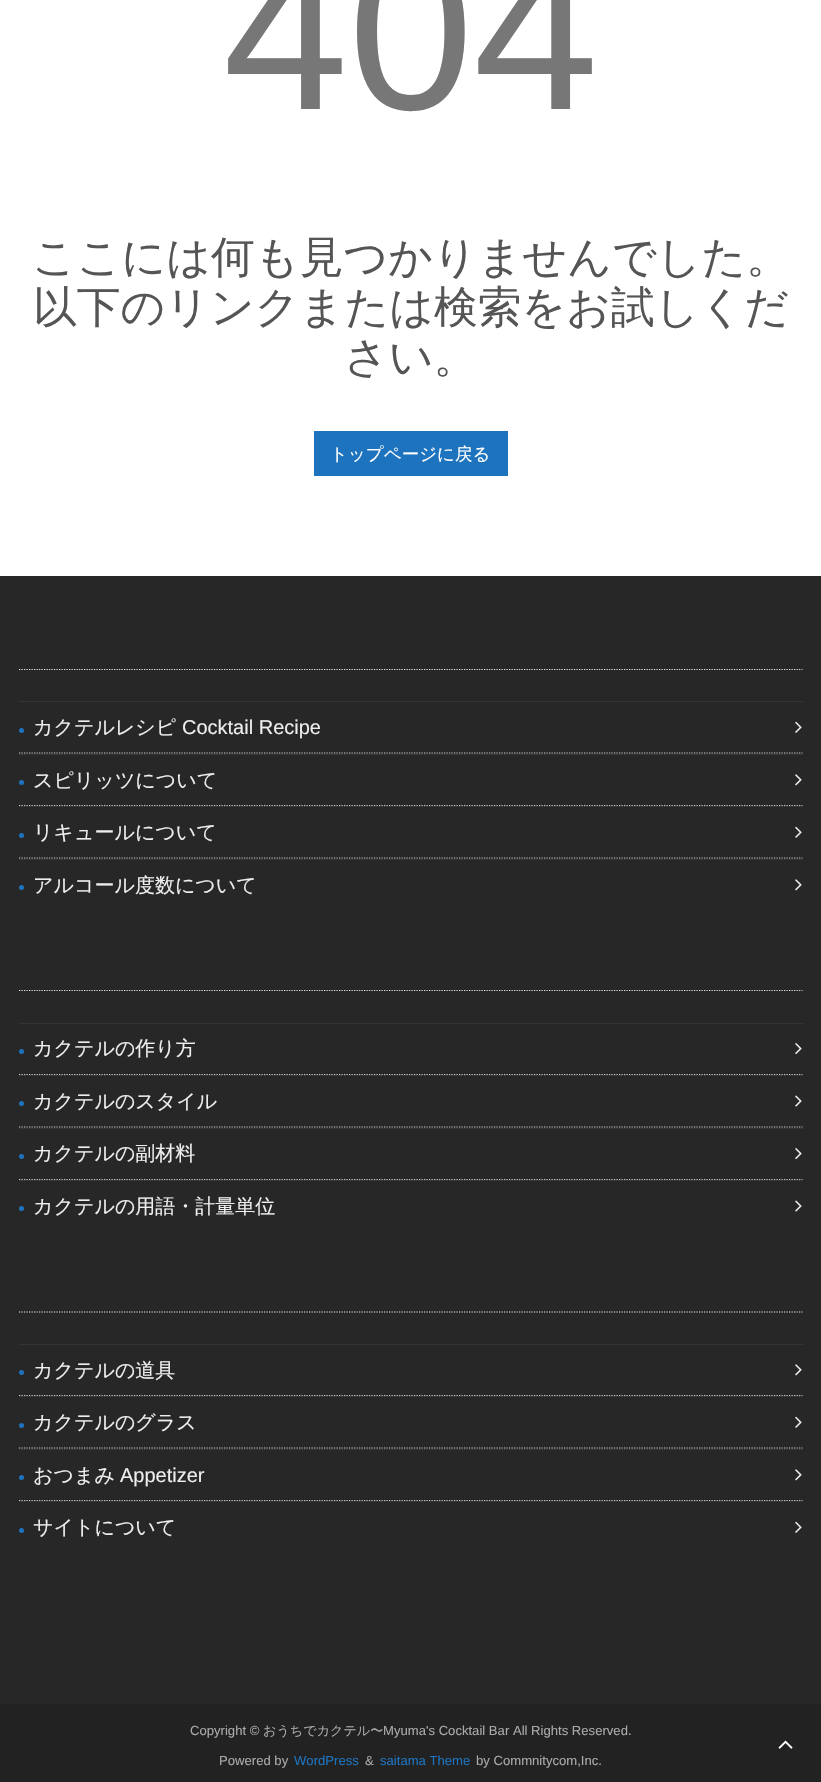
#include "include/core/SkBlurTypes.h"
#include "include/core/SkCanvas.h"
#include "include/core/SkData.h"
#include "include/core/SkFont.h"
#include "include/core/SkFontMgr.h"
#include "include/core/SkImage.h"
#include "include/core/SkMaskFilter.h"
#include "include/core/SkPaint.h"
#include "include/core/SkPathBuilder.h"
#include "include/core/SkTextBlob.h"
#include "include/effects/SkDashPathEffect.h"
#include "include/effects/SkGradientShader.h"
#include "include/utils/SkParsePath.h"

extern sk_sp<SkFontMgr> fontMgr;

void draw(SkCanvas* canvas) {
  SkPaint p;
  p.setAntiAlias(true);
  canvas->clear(SK_ColorWHITE);
  p.setColor(SkColorSetRGB(30, 115, 190));
  canvas->drawRect(SkRect::MakeLTRB(314, 431, 508, 476), p);
  p.setColor(SkColorSetRGB(39, 39, 39));
  canvas->drawRect(SkRect::MakeLTRB(0, 576, 821, 1704), p);
  p.setStyle(SkPaint::kStroke_Style);
  p.setStrokeWidth(1.2f);
  p.setColor(SkColorSetRGB(228, 233, 240));
  p.setPathEffect(SkDashPathEffect::Make({{1.25f, 1.25f}}, 0));
  canvas->drawPath(SkPathBuilder().moveTo(19, 669.5f).lineTo(802.5f, 669.5f).detach(), p);
  p.setPathEffect(nullptr);
  p.setStyle(SkPaint::kFill_Style);
  p.setColor(SkColorSetRGB(53, 53, 53));
  canvas->drawRect(SkRect::MakeLTRB(19, 701, 803, 702), p);
  p.setStyle(SkPaint::kStroke_Style);
  p.setColor(SkColorSetRGB(204, 204, 204));
  p.setPathEffect(SkDashPathEffect::Make({{1.25f, 1.25f}}, 0));
  canvas->drawPath(SkPathBuilder().moveTo(19, 753).lineTo(802.5f, 753).detach(), p);
  p.setPathEffect(nullptr);
  p.setStyle(SkPaint::kFill_Style);
  p.setColor(SkColorSetRGB(30, 115, 190));
  canvas->drawCircle(21.5f, 730.5f, 2.5f, p);
  canvas->drawImageRect(SkImages::DeferredFromEncodedData(SkData::MakeFromFileName("images/1.png")), SkRect::MakeLTRB(795, 721, 802, 733), SkSamplingOptions());
  p.setColor(SkColorSetRGB(53, 53, 53));
  canvas->drawRect(SkRect::MakeLTRB(19, 754, 803, 755), p);
  p.setStyle(SkPaint::kStroke_Style);
  p.setColor(SkColorSetRGB(204, 204, 204));
  p.setPathEffect(SkDashPathEffect::Make({{1.25f, 1.25f}}, 0));
  canvas->drawPath(SkPathBuilder().moveTo(19, 805.5f).lineTo(802.5f, 805.5f).detach(), p);
  p.setPathEffect(nullptr);
  p.setStyle(SkPaint::kFill_Style);
  p.setColor(SkColorSetRGB(30, 115, 190));
  canvas->drawCircle(21.5f, 782.5f, 2.5f, p);
  canvas->drawImageRect(SkImages::DeferredFromEncodedData(SkData::MakeFromFileName("images/2.png")), SkRect::MakeLTRB(795, 774, 802, 786), SkSamplingOptions());
  p.setColor(SkColorSetRGB(53, 53, 53));
  canvas->drawRect(SkRect::MakeLTRB(19, 806, 803, 807), p);
  p.setStyle(SkPaint::kStroke_Style);
  p.setColor(SkColorSetRGB(204, 204, 204));
  p.setPathEffect(SkDashPathEffect::Make({{1.25f, 1.25f}}, 0));
  canvas->drawPath(SkPathBuilder().moveTo(19, 858).lineTo(802.5f, 858).detach(), p);
  p.setPathEffect(nullptr);
  p.setStyle(SkPaint::kFill_Style);
  p.setColor(SkColorSetRGB(30, 115, 190));
  canvas->drawCircle(21.5f, 835.5f, 2.5f, p);
  canvas->drawImageRect(SkImages::DeferredFromEncodedData(SkData::MakeFromFileName("images/1.png")), SkRect::MakeLTRB(795, 826, 802, 838), SkSamplingOptions());
  p.setColor(SkColorSetRGB(53, 53, 53));
  canvas->drawRect(SkRect::MakeLTRB(19, 859, 803, 860), p);
  p.setColor(SkColorSetRGB(30, 115, 190));
  canvas->drawCircle(21.5f, 887.5f, 2.5f, p);
  canvas->drawImageRect(SkImages::DeferredFromEncodedData(SkData::MakeFromFileName("images/2.png")), SkRect::MakeLTRB(795, 879, 802, 891), SkSamplingOptions());
  p.setStyle(SkPaint::kStroke_Style);
  p.setColor(SkColorSetRGB(228, 233, 240));
  p.setPathEffect(SkDashPathEffect::Make({{1.25f, 1.25f}}, 0));
  canvas->drawPath(SkPathBuilder().moveTo(19, 990.5f).lineTo(802.5f, 990.5f).detach(), p);
  p.setPathEffect(nullptr);
  p.setStyle(SkPaint::kFill_Style);
  p.setColor(SkColorSetRGB(53, 53, 53));
  canvas->drawRect(SkRect::MakeLTRB(19, 1023, 803, 1024), p);
  p.setStyle(SkPaint::kStroke_Style);
  p.setColor(SkColorSetRGB(204, 204, 204));
  p.setPathEffect(SkDashPathEffect::Make({{1.25f, 1.25f}}, 0));
  canvas->drawPath(SkPathBuilder().moveTo(19, 1074.5f).lineTo(802.5f, 1074.5f).detach(), p);
  p.setPathEffect(nullptr);
  p.setStyle(SkPaint::kFill_Style);
  p.setColor(SkColorSetRGB(30, 115, 190));
  canvas->drawCircle(21.5f, 1051.5f, 2.5f, p);
  canvas->drawImageRect(SkImages::DeferredFromEncodedData(SkData::MakeFromFileName("images/3.png")), SkRect::MakeLTRB(795, 1043, 802, 1055), SkSamplingOptions());
  p.setColor(SkColorSetRGB(53, 53, 53));
  canvas->drawRect(SkRect::MakeLTRB(19, 1075, 803, 1076), p);
  p.setStyle(SkPaint::kStroke_Style);
  p.setColor(SkColorSetRGB(204, 204, 204));
  p.setPathEffect(SkDashPathEffect::Make({{1.25f, 1.25f}}, 0));
  canvas->drawPath(SkPathBuilder().moveTo(19, 1127).lineTo(802.5f, 1127).detach(), p);
  p.setPathEffect(nullptr);
  p.setStyle(SkPaint::kFill_Style);
  p.setColor(SkColorSetRGB(30, 115, 190));
  canvas->drawCircle(21.5f, 1103.5f, 2.5f, p);
  canvas->drawImageRect(SkImages::DeferredFromEncodedData(SkData::MakeFromFileName("images/4.png")), SkRect::MakeLTRB(795, 1095, 802, 1107), SkSamplingOptions());
  p.setColor(SkColorSetRGB(53, 53, 53));
  canvas->drawRect(SkRect::MakeLTRB(19, 1128, 803, 1129), p);
  p.setStyle(SkPaint::kStroke_Style);
  p.setColor(SkColorSetRGB(204, 204, 204));
  p.setPathEffect(SkDashPathEffect::Make({{1.25f, 1.25f}}, 0));
  canvas->drawPath(SkPathBuilder().moveTo(19, 1179.5f).lineTo(802.5f, 1179.5f).detach(), p);
  p.setPathEffect(nullptr);
  p.setStyle(SkPaint::kFill_Style);
  p.setColor(SkColorSetRGB(30, 115, 190));
  canvas->drawCircle(21.5f, 1156.5f, 2.5f, p);
  canvas->drawImageRect(SkImages::DeferredFromEncodedData(SkData::MakeFromFileName("images/3.png")), SkRect::MakeLTRB(795, 1148, 802, 1160), SkSamplingOptions());
  p.setColor(SkColorSetRGB(53, 53, 53));
  canvas->drawRect(SkRect::MakeLTRB(19, 1180, 803, 1181), p);
  p.setColor(SkColorSetRGB(30, 115, 190));
  canvas->drawCircle(21.5f, 1208.5f, 2.5f, p);
  canvas->drawImageRect(SkImages::DeferredFromEncodedData(SkData::MakeFromFileName("images/4.png")), SkRect::MakeLTRB(795, 1200, 802, 1212), SkSamplingOptions());
  p.setStyle(SkPaint::kStroke_Style);
  p.setColor(SkColorSetRGB(228, 233, 240));
  p.setPathEffect(SkDashPathEffect::Make({{1.25f, 1.25f}}, 0));
  canvas->drawPath(SkPathBuilder().moveTo(19, 1312).lineTo(802.5f, 1312).detach(), p);
  p.setPathEffect(nullptr);
  p.setStyle(SkPaint::kFill_Style);
  p.setColor(SkColorSetRGB(53, 53, 53));
  canvas->drawRect(SkRect::MakeLTRB(19, 1344, 803, 1345), p);
  p.setStyle(SkPaint::kStroke_Style);
  p.setColor(SkColorSetRGB(204, 204, 204));
  p.setPathEffect(SkDashPathEffect::Make({{1.25f, 1.25f}}, 0));
  canvas->drawPath(SkPathBuilder().moveTo(19, 1395.5f).lineTo(802.5f, 1395.5f).detach(), p);
  p.setPathEffect(nullptr);
  p.setStyle(SkPaint::kFill_Style);
  p.setColor(SkColorSetRGB(30, 115, 190));
  canvas->drawCircle(21.5f, 1372.5f, 2.5f, p);
  canvas->drawImageRect(SkImages::DeferredFromEncodedData(SkData::MakeFromFileName("images/2.png")), SkRect::MakeLTRB(795, 1364, 802, 1376), SkSamplingOptions());
  p.setColor(SkColorSetRGB(53, 53, 53));
  canvas->drawRect(SkRect::MakeLTRB(19, 1396, 803, 1397), p);
  p.setStyle(SkPaint::kStroke_Style);
  p.setColor(SkColorSetRGB(204, 204, 204));
  p.setPathEffect(SkDashPathEffect::Make({{1.25f, 1.25f}}, 0));
  canvas->drawPath(SkPathBuilder().moveTo(19, 1448).lineTo(802.5f, 1448).detach(), p);
  p.setPathEffect(nullptr);
  p.setStyle(SkPaint::kFill_Style);
  p.setColor(SkColorSetRGB(30, 115, 190));
  canvas->drawCircle(21.5f, 1425.5f, 2.5f, p);
  canvas->drawImageRect(SkImages::DeferredFromEncodedData(SkData::MakeFromFileName("images/1.png")), SkRect::MakeLTRB(795, 1416, 802, 1428), SkSamplingOptions());
  p.setColor(SkColorSetRGB(53, 53, 53));
  canvas->drawRect(SkRect::MakeLTRB(19, 1449, 803, 1450), p);
  p.setStyle(SkPaint::kStroke_Style);
  p.setColor(SkColorSetRGB(204, 204, 204));
  p.setPathEffect(SkDashPathEffect::Make({{1.25f, 1.25f}}, 0));
  canvas->drawPath(SkPathBuilder().moveTo(19, 1500.5f).lineTo(802.5f, 1500.5f).detach(), p);
  p.setPathEffect(nullptr);
  p.setStyle(SkPaint::kFill_Style);
  p.setColor(SkColorSetRGB(30, 115, 190));
  canvas->drawCircle(21.5f, 1477.5f, 2.5f, p);
  canvas->drawImageRect(SkImages::DeferredFromEncodedData(SkData::MakeFromFileName("images/2.png")), SkRect::MakeLTRB(795, 1469, 802, 1481), SkSamplingOptions());
  p.setColor(SkColorSetRGB(53, 53, 53));
  canvas->drawRect(SkRect::MakeLTRB(19, 1501, 803, 1502), p);
  p.setColor(SkColorSetRGB(30, 115, 190));
  canvas->drawCircle(21.5f, 1530.5f, 2.5f, p);
  canvas->drawImageRect(SkImages::DeferredFromEncodedData(SkData::MakeFromFileName("images/1.png")), SkRect::MakeLTRB(795, 1521, 802, 1533), SkSamplingOptions());
  p.setColor(SkColorSetRGB(34, 34, 34));
  canvas->drawRect(SkRect::MakeLTRB(0, 1704, 821, 1782), p);
  canvas->drawImageRect(SkImages::DeferredFromEncodedData(SkData::MakeFromFileName("images/5.png")), SkRect::MakeLTRB(778, 1740, 793, 1749), SkSamplingOptions());
  SkFont font1(fontMgr->matchFamilyStyle("Liberation Sans", SkFontStyle::Normal()), 225);
  font1.setSubpixel(true);
  p.setColor(SkColorSetRGB(119, 119, 119));
  canvas->drawString("404", 223, 109, font1, p);
  SkFont font2(fontMgr->matchFamilyStyle("WenQuanYi Zen Hei", SkFontStyle(500, SkFontStyle::kNormal_Width, SkFontStyle::kUpright_Slant)), 43.75f);
  font2.setSubpixel(true);
  p.setColor(SkColorSetRGB(85, 85, 85));
  canvas->drawString("ここには何も見つかりませんでした。", 32, 272, font2, p);
  canvas->drawString("以下のリンクまたは検索をお試しくだ", 33, 322, font2, p);
  canvas->drawString("さい。", 344, 372, font2, p);
  SkFont font3(fontMgr->matchFamilyStyle("WenQuanYi Zen Hei", SkFontStyle(500, SkFontStyle::kNormal_Width, SkFontStyle::kUpright_Slant)), 17.5f);
  font3.setSubpixel(true);
  p.setColor(SK_ColorWHITE);
  canvas->drawString("トップページに戻る", 330, 460, font3, p);
  SkFont font4(fontMgr->matchFamilyStyle("WenQuanYi Zen Hei", SkFontStyle(500, SkFontStyle::kNormal_Width, SkFontStyle::kUpright_Slant)), 20);
  font4.setSubpixel(true);
  p.setColor(SkColorSetRGB(238, 238, 238));
  canvas->drawString("カクテルレシピ", 33, 734, font4, p);
  SkFont font5(fontMgr->matchFamilyStyle("Liberation Sans", SkFontStyle::Normal()), 20);
  font5.setSubpixel(true);
  canvas->drawString("Cocktail Recipe", 182, 734, font5, p);
  canvas->drawString("スピリッツについて", 33, 787, font4, p);
  canvas->drawString("リキュールについて", 33, 839, font4, p);
  canvas->drawString("アルコール度数について", 33, 892, font4, p);
  canvas->drawString("カクテルの作り方", 33, 1055, font4, p);
  canvas->drawString("カクテルのスタイル", 33, 1108, font4, p);
  canvas->drawString("カクテルの副材料", 33, 1160, font4, p);
  canvas->drawString("カクテルの用語・計量単位", 33, 1213, font4, p);
  canvas->drawString("カクテルの道具", 33, 1377, font4, p);
  canvas->drawString("カクテルのグラス", 33, 1429, font4, p);
  canvas->drawString("おつまみ", 33, 1482, font4, p);
  canvas->drawString("Appetizer", 120, 1482, font5, p);
  canvas->drawString("サイトについて", 33, 1534, font4, p);
  SkFont font6(fontMgr->matchFamilyStyle("Liberation Sans", SkFontStyle::Normal()), 13.1f);
  font6.setSubpixel(true);
  p.setColor(SkColorSetRGB(170, 170, 170));
  canvas->drawString("Copyright ©", 190, 1735, font6, p);
  SkFont font7(fontMgr->matchFamilyStyle("WenQuanYi Zen Hei", SkFontStyle(500, SkFontStyle::kNormal_Width, SkFontStyle::kUpright_Slant)), 13.1f);
  font7.setSubpixel(true);
  canvas->drawString("おうちでカクテル〜", 263, 1735, font7, p);
  canvas->drawString("Myuma's Cocktail Bar All Rights Reserved.", 383, 1735, font6, p);
  canvas->drawString("Powered by", 219, 1765, font6, p);
  p.setColor(SkColorSetRGB(30, 115, 190));
  canvas->drawString("WordPress", 294, 1765, font6, p);
  p.setColor(SkColorSetRGB(170, 170, 170));
  canvas->drawString("&", 365, 1765, font6, p);
  p.setColor(SkColorSetRGB(30, 115, 190));
  canvas->drawString("saitama Theme", 380, 1765, font6, p);
  p.setColor(SkColorSetRGB(170, 170, 170));
  canvas->drawString("by Commnitycom,Inc.", 476, 1765, font6, p);
}
